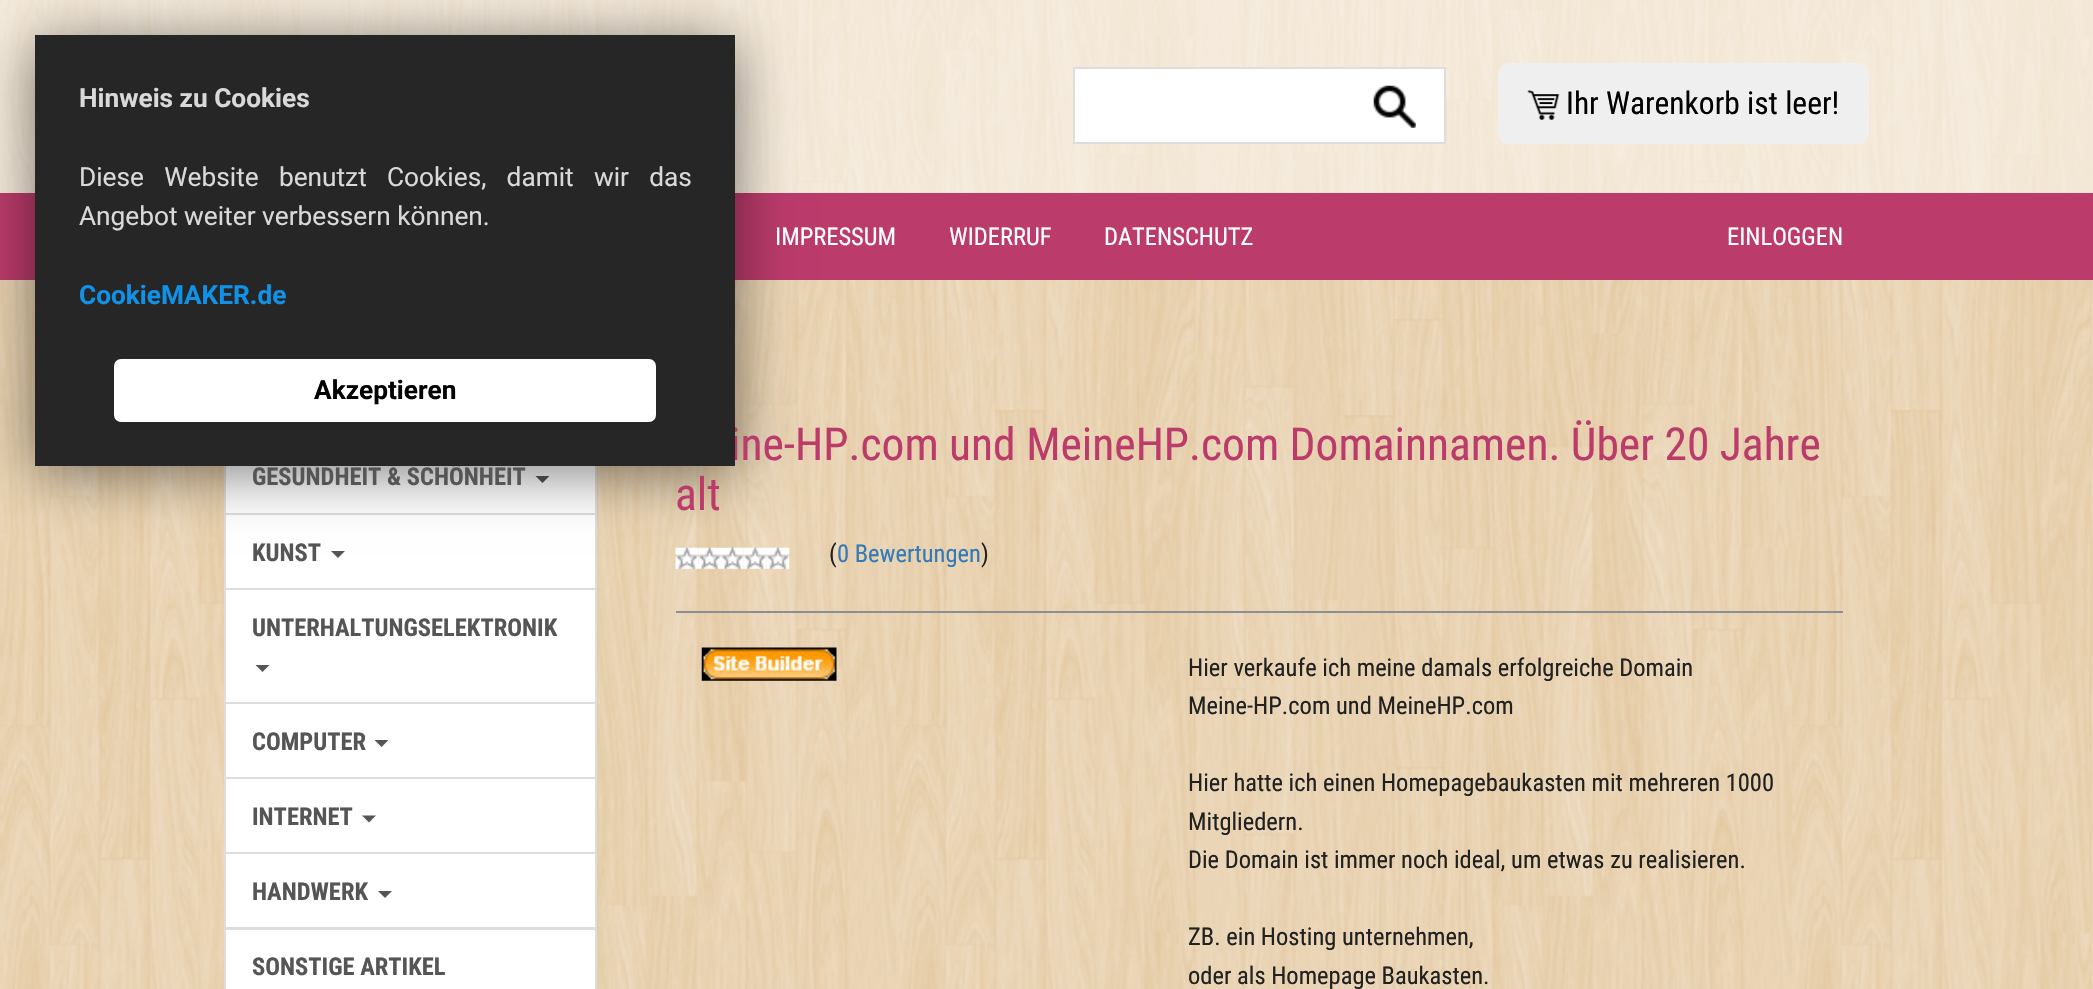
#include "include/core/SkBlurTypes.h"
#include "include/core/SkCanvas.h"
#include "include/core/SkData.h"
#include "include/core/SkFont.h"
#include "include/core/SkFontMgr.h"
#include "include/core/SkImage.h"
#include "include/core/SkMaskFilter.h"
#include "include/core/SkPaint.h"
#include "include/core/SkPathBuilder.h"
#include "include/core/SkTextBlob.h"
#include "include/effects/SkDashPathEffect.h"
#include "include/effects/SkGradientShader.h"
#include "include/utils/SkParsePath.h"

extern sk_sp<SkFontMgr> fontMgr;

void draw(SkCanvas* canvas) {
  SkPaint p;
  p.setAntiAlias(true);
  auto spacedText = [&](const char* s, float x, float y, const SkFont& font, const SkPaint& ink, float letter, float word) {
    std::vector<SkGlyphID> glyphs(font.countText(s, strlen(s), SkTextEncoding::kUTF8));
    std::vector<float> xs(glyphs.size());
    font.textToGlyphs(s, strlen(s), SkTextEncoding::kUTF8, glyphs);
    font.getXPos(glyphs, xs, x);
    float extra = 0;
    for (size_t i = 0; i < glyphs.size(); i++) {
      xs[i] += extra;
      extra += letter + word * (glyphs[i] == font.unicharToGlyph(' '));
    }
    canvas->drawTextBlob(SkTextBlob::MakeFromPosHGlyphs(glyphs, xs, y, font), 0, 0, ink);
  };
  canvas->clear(SK_ColorWHITE);
  canvas->drawImageRect(SkImages::DeferredFromEncodedData(SkData::MakeFromFileName("images/1.png")), SkRect::MakeLTRB(0, 0, 2093, 989), SkSamplingOptions());
  p.setColor(SkColorSetARGB(128, 255, 255, 255));
  canvas->drawRect(SkRect::MakeLTRB(0, 0, 2093, 193), p);
  p.setColor(SkColorSetRGB(187, 59, 107));
  canvas->drawRect(SkRect::MakeLTRB(0, 193, 2093, 280), p);
  p.setColor(SK_ColorWHITE);
  canvas->drawRect(SkRect::MakeLTRB(226, 466, 595, 513), p);
  p.setStyle(SkPaint::kStroke_Style);
  p.setStrokeWidth(2);
  p.setColor(SkColorSetRGB(221, 221, 221));
  canvas->drawRect(SkRect::MakeLTRB(225, 439, 596, 514), p);
  p.setStyle(SkPaint::kFill_Style);
  p.setColor(SkColorSetRGB(85, 85, 85));
  canvas->drawPath(SkPathBuilder().moveTo(535.5f, 476).lineTo(549.5f, 476).lineTo(542.5f, 483).close().detach(), p);
  p.setColor(SK_ColorWHITE);
  canvas->drawRect(SkRect::MakeLTRB(225, 514, 596, 589), p);
  p.setStyle(SkPaint::kStroke_Style);
  p.setColor(SkColorSetRGB(221, 221, 221));
  canvas->drawRect(SkRect::MakeLTRB(225, 514, 596, 589), p);
  p.setStyle(SkPaint::kFill_Style);
  p.setColor(SkColorSetRGB(85, 85, 85));
  canvas->drawPath(SkPathBuilder().moveTo(331, 551).lineTo(345, 551).lineTo(338, 558).close().detach(), p);
  canvas->drawImageRect(SkImages::DeferredFromEncodedData(SkData::MakeFromFileName("images/4.png")), SkRect::MakeLTRB(675, 547, 699, 569), SkSamplingOptions());
  canvas->drawImageRect(SkImages::DeferredFromEncodedData(SkData::MakeFromFileName("images/5.png")), SkRect::MakeLTRB(698, 547, 721, 569), SkSamplingOptions());
  canvas->drawImageRect(SkImages::DeferredFromEncodedData(SkData::MakeFromFileName("images/6.png")), SkRect::MakeLTRB(721, 547, 744, 569), SkSamplingOptions());
  canvas->drawImageRect(SkImages::DeferredFromEncodedData(SkData::MakeFromFileName("images/7.png")), SkRect::MakeLTRB(743, 547, 767, 569), SkSamplingOptions());
  canvas->drawImageRect(SkImages::DeferredFromEncodedData(SkData::MakeFromFileName("images/8.png")), SkRect::MakeLTRB(766, 547, 790, 569), SkSamplingOptions());
  p.setColor(SkColorSetARGB(128, 0, 0, 0));
  p.setMaskFilter(SkMaskFilter::MakeBlur(kNormal_SkBlurStyle, 28));
  canvas->drawRect(SkRect::MakeLTRB(35, 42, 735, 473), p);
  p.setMaskFilter(nullptr);
  p.setColor(SK_ColorWHITE);
  canvas->drawRect(SkRect::MakeLTRB(1075, 69, 1444, 142), p);
  p.setColor(SkColorSetRGB(221, 221, 221));
  canvas->drawRect(SkRect::MakeLTRB(1073, 67, 1446, 69), p);
  canvas->drawRect(SkRect::MakeLTRB(1073, 142, 1348, 144), p);
  canvas->drawRect(SkRect::MakeLTRB(1073, 67, 1075, 144), p);
  canvas->drawRect(SkRect::MakeLTRB(1444, 67, 1446, 144), p);
  canvas->drawRect(SkRect::MakeLTRB(1346, 142, 1446, 144), p);
  canvas->drawImageRect(SkImages::DeferredFromEncodedData(SkData::MakeFromFileName("images/2.png")), SkRect::MakeLTRB(1373, 85, 1416, 128), SkSamplingOptions());
  p.setColor(SkColorSetRGB(239, 239, 239));
  canvas->drawRoundRect(SkRect::MakeLTRB(1498, 63, 1869, 144), 11, 11, p);
  canvas->drawImageRect(SkImages::DeferredFromEncodedData(SkData::MakeFromFileName("images/3.png")), SkRect::MakeLTRB(1527, 90, 1560, 120), SkSamplingOptions());
  p.setColor(SK_ColorWHITE);
  canvas->drawRect(SkRect::MakeLTRB(225, 589, 596, 703), p);
  p.setStyle(SkPaint::kStroke_Style);
  p.setColor(SkColorSetRGB(221, 221, 221));
  canvas->drawRect(SkRect::MakeLTRB(225, 589, 596, 703), p);
  p.setStyle(SkPaint::kFill_Style);
  p.setColor(SkColorSetRGB(85, 85, 85));
  canvas->drawPath(SkPathBuilder().moveTo(255.5f, 665).lineTo(269.5f, 665).lineTo(262.5f, 672).close().detach(), p);
  p.setColor(SK_ColorWHITE);
  canvas->drawRect(SkRect::MakeLTRB(225, 703, 596, 778), p);
  p.setStyle(SkPaint::kStroke_Style);
  p.setColor(SkColorSetRGB(221, 221, 221));
  canvas->drawRect(SkRect::MakeLTRB(225, 703, 596, 778), p);
  p.setStyle(SkPaint::kFill_Style);
  p.setColor(SkColorSetRGB(85, 85, 85));
  canvas->drawPath(SkPathBuilder().moveTo(374.5f, 740).lineTo(388.5f, 740).lineTo(381.5f, 747).close().detach(), p);
  p.setColor(SK_ColorWHITE);
  canvas->drawRect(SkRect::MakeLTRB(225, 778, 596, 853), p);
  p.setStyle(SkPaint::kStroke_Style);
  p.setColor(SkColorSetRGB(221, 221, 221));
  canvas->drawRect(SkRect::MakeLTRB(225, 778, 596, 853), p);
  p.setStyle(SkPaint::kFill_Style);
  p.setColor(SkColorSetRGB(85, 85, 85));
  canvas->drawPath(SkPathBuilder().moveTo(362, 815.5f).lineTo(376, 815.5f).lineTo(369, 822.5f).close().detach(), p);
  p.setColor(SK_ColorWHITE);
  canvas->drawRect(SkRect::MakeLTRB(225, 853, 596, 928), p);
  p.setStyle(SkPaint::kStroke_Style);
  p.setColor(SkColorSetRGB(221, 221, 221));
  canvas->drawRect(SkRect::MakeLTRB(225, 853, 596, 928), p);
  p.setStyle(SkPaint::kFill_Style);
  p.setColor(SkColorSetRGB(85, 85, 85));
  canvas->drawPath(SkPathBuilder().moveTo(378, 891).lineTo(392, 891).lineTo(385, 898).close().detach(), p);
  p.setColor(SK_ColorWHITE);
  canvas->drawRect(SkRect::MakeLTRB(225, 929, 596, 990), p);
  p.setStyle(SkPaint::kStroke_Style);
  p.setColor(SkColorSetRGB(221, 221, 221));
  canvas->drawRect(SkRect::MakeLTRB(225, 929, 596, 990), p);
  p.setStyle(SkPaint::kFill_Style);
  p.setColor(SkColorSetRGB(140, 143, 146));
  canvas->drawRect(SkRect::MakeLTRB(676, 611, 1843, 613), p);
  canvas->drawImageRect(SkImages::DeferredFromEncodedData(SkData::MakeFromFileName("images/9.png")), SkRect::MakeLTRB(701, 647, 837, 681), SkSamplingOptions());
  SkFont font1(fontMgr->matchFamilyStyle("Roboto Condensed", SkFontStyle::Normal()), 31.5f);
  font1.setSubpixel(true);
  p.setColor(SK_ColorBLACK);
  canvas->drawString("Ihr Warenkorb ist leer!", 1566, 114, font1, p);
  SkFont font2(fontMgr->matchFamilyStyle("Roboto Condensed", SkFontStyle::Normal()), 24.5f);
  font2.setSubpixel(true);
  p.setColor(SK_ColorWHITE);
  canvas->drawString("IMPRESSUM", 775, 245, font2, p);
  canvas->drawString("WIDERRUF", 949, 245, font2, p);
  canvas->drawString("DATENSCHUTZ", 1104, 245, font2, p);
  canvas->drawString("EINLOGGEN", 1727, 245, font2, p);
  SkFont font3(fontMgr->matchFamilyStyle("Roboto Condensed", SkFontStyle::Bold()), 24.5f);
  font3.setSubpixel(true);
  p.setColor(SkColorSetRGB(85, 85, 85));
  canvas->drawString("GESUNDHEIT & SCHÖNHEIT", 252, 485, font3, p);
  canvas->drawString("KUNST", 252, 561, font3, p);
  canvas->drawString("UNTERHALTUNGSELEKTRONIK", 252, 636, font3, p);
  canvas->drawString("COMPUTER", 252, 750, font3, p);
  canvas->drawString("INTERNET", 252, 825, font3, p);
  canvas->drawString("HANDWERK", 252, 900, font3, p);
  canvas->drawString("SONSTIGE ARTIKEL", 252, 975, font3, p);
  SkFont font4(fontMgr->matchFamilyStyle("Roboto Condensed", SkFontStyle::Normal()), 45.5f);
  font4.setSubpixel(true);
  p.setColor(SkColorSetRGB(187, 59, 107));
  canvas->drawString("ine-HP.com und MeineHP.com Domainnamen. Über 20 Jahre", 730, 460, font4, p);
  p.setColor(SkColorSetRGB(38, 38, 38));
  canvas->drawRect(SkRect::MakeLTRB(35, 35, 735, 466), p);
  p.setColor(SK_ColorWHITE);
  canvas->drawRoundRect(SkRect::MakeLTRB(114, 359, 656, 422), 7, 7, p);
  SkFont font5(fontMgr->matchFamilyStyle("Roboto", SkFontStyle::Bold()), 26.25f);
  font5.setSubpixel(true);
  p.setColor(SK_ColorBLACK);
  canvas->drawString("Akzeptieren", 314, 399, font5, p);
  p.setColor(SkColorSetRGB(15, 146, 231));
  canvas->drawString("CookieMAKER.de", 79, 304, font5, p);
  SkFont font6(fontMgr->matchFamilyStyle("Roboto", SkFontStyle::Normal()), 26.25f);
  font6.setSubpixel(true);
  p.setColor(SkColorSetRGB(217, 217, 217));
  canvas->drawString("Angebot weiter verbessern können.", 79, 225, font6, p);
  spacedText("Diese Website benutzt Cookies, damit wir das", 79, 186, font6, p, 0, 13.75f);
  canvas->drawString("Hinweis zu Cookies", 79, 107, font5, p);
  p.setColor(SkColorSetRGB(187, 59, 107));
  canvas->drawString("alt", 675, 510, font4, p);
  p.setColor(SkColorSetRGB(33, 33, 33));
  canvas->drawString("(", 829, 562, font2, p);
  p.setColor(SkColorSetRGB(51, 122, 183));
  canvas->drawString("0 Bewertungen", 837, 562, font2, p);
  p.setColor(SkColorSetRGB(33, 33, 33));
  canvas->drawString(")", 981, 562, font2, p);
  canvas->drawString("Hier verkaufe ich meine damals erfolgreiche Domain", 1188, 676, font2, p);
  canvas->drawString("Meine-HP.com und MeineHP.com", 1188, 714, font2, p);
  canvas->drawString("Hier hatte ich einen Homepagebaukasten mit mehreren 1000", 1188, 791, font2, p);
  canvas->drawString("Mitgliedern.", 1188, 830, font2, p);
  canvas->drawString("Die Domain ist immer noch ideal, um etwas zu realisieren.", 1188, 868, font2, p);
  canvas->drawString("ZB. ein Hosting unternehmen,", 1188, 945, font2, p);
  canvas->drawString("oder als Homepage Baukasten.", 1188, 984, font2, p);
}
